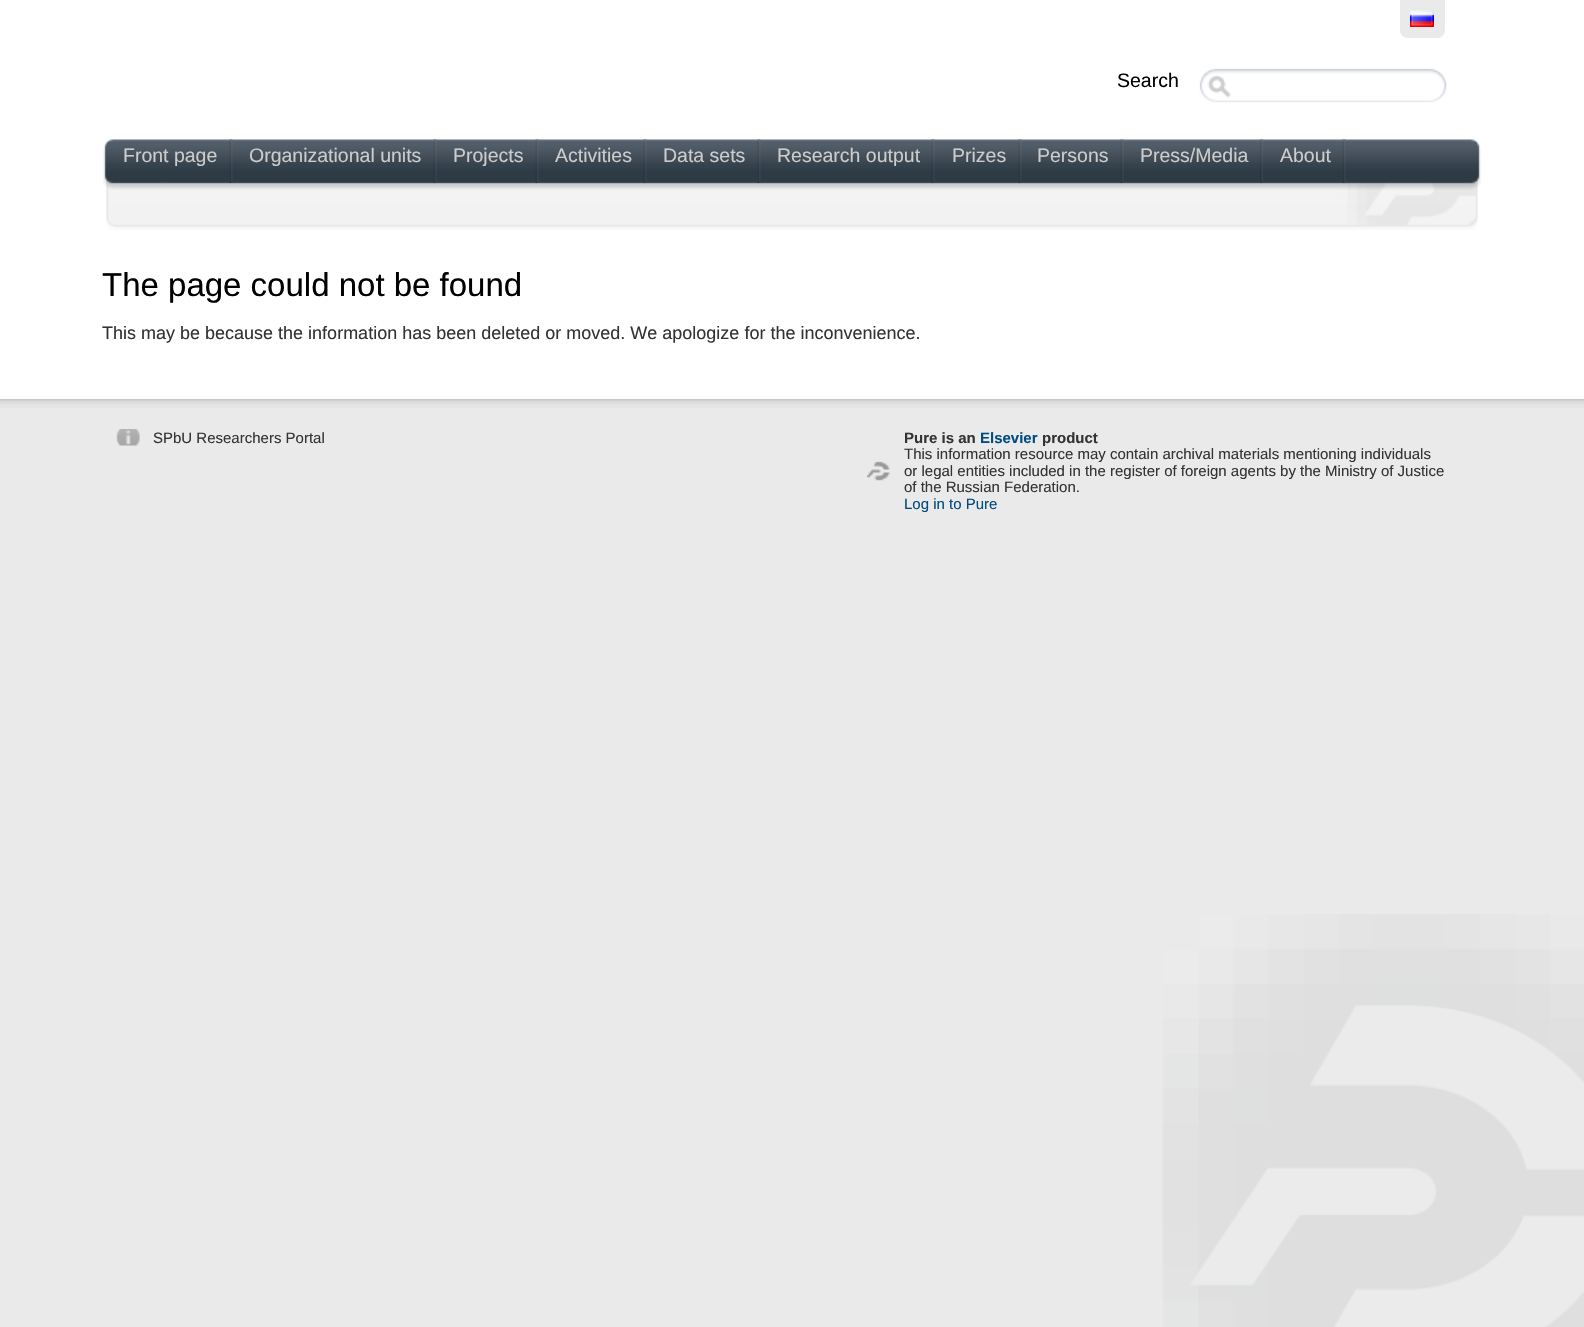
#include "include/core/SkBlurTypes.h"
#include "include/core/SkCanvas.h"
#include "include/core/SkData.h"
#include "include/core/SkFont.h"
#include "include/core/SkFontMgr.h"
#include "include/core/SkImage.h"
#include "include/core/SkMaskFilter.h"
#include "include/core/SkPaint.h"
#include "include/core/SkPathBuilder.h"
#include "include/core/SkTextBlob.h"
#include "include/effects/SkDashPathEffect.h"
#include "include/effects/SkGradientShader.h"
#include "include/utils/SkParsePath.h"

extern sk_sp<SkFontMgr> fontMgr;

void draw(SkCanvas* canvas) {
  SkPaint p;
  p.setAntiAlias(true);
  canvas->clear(SkColorSetRGB(234, 234, 234));
  canvas->drawImageRect(SkImages::DeferredFromEncodedData(SkData::MakeFromFileName("images/1.png")), SkRect::MakeLTRB(1162, 914, 1584, 1327), SkSamplingOptions());
  p.setColor(SK_ColorWHITE);
  canvas->drawRect(SkRect::MakeLTRB(0, 0, 1584, 399), p);
  p.setColor(SkColorSetRGB(234, 234, 234));
  canvas->drawPath(SkPathBuilder().moveTo(1400, 0).lineTo(1445, 0).lineTo(1445, 30).cubicTo(1445, 34.5f, 1441.5f, 38, 1437, 38).lineTo(1408, 38).cubicTo(1403.5f, 38, 1400, 34.5f, 1400, 30).close().detach(), p);
  canvas->drawImageRect(SkImages::DeferredFromEncodedData(SkData::MakeFromFileName("images/2.png")), SkRect::MakeLTRB(1410, 10, 1434, 27), SkSamplingOptions());
  canvas->drawImageRect(SkImages::DeferredFromEncodedData(SkData::MakeFromFileName("images/3.png")), SkRect::MakeLTRB(1431, 68, 1447, 103), SkSamplingOptions());
  canvas->drawImageRect(SkImages::DeferredFromEncodedData(SkData::MakeFromFileName("images/4.png")), SkRect::MakeLTRB(1199, 68, 1431, 103), SkSamplingOptions());
  canvas->drawImageRect(SkImages::DeferredFromEncodedData(SkData::MakeFromFileName("images/8.png")), SkRect::MakeLTRB(106, 175, 1478, 230), SkSamplingOptions());
  canvas->drawImageRect(SkImages::DeferredFromEncodedData(SkData::MakeFromFileName("images/5.png")), SkRect::MakeLTRB(103, 139, 1481, 190), SkSamplingOptions());
  canvas->drawImageRect(SkImages::DeferredFromEncodedData(SkData::MakeFromFileName("images/6.png")), SkRect::MakeLTRB(229, 139, 233, 183), SkSamplingOptions());
  canvas->drawImageRect(SkImages::DeferredFromEncodedData(SkData::MakeFromFileName("images/6.png")), SkRect::MakeLTRB(433, 139, 437, 183), SkSamplingOptions());
  canvas->drawImageRect(SkImages::DeferredFromEncodedData(SkData::MakeFromFileName("images/6.png")), SkRect::MakeLTRB(535, 139, 539, 183), SkSamplingOptions());
  canvas->drawImageRect(SkImages::DeferredFromEncodedData(SkData::MakeFromFileName("images/6.png")), SkRect::MakeLTRB(643, 139, 647, 183), SkSamplingOptions());
  canvas->drawImageRect(SkImages::DeferredFromEncodedData(SkData::MakeFromFileName("images/6.png")), SkRect::MakeLTRB(757, 139, 761, 183), SkSamplingOptions());
  canvas->drawImageRect(SkImages::DeferredFromEncodedData(SkData::MakeFromFileName("images/6.png")), SkRect::MakeLTRB(931, 139, 935, 183), SkSamplingOptions());
  canvas->drawImageRect(SkImages::DeferredFromEncodedData(SkData::MakeFromFileName("images/6.png")), SkRect::MakeLTRB(1018, 139, 1022, 183), SkSamplingOptions());
  canvas->drawImageRect(SkImages::DeferredFromEncodedData(SkData::MakeFromFileName("images/6.png")), SkRect::MakeLTRB(1120, 139, 1124, 183), SkSamplingOptions());
  canvas->drawImageRect(SkImages::DeferredFromEncodedData(SkData::MakeFromFileName("images/7.png")), SkRect::MakeLTRB(1260, 139, 1263, 183), SkSamplingOptions());
  canvas->drawImageRect(SkImages::DeferredFromEncodedData(SkData::MakeFromFileName("images/6.png")), SkRect::MakeLTRB(1342, 139, 1346, 183), SkSamplingOptions());
  canvas->drawImageRect(SkImages::DeferredFromEncodedData(SkData::MakeFromFileName("images/9.png")), SkRect::MakeLTRB(0, 399, 1584, 408), SkSamplingOptions());
  canvas->drawImageRect(SkImages::DeferredFromEncodedData(SkData::MakeFromFileName("images/10.png")), SkRect::MakeLTRB(116, 429, 140, 446), SkSamplingOptions());
  canvas->drawImageRect(SkImages::DeferredFromEncodedData(SkData::MakeFromFileName("images/11.png")), SkRect::MakeLTRB(867, 461, 890, 481), SkSamplingOptions());
  SkFont font1(fontMgr->matchFamilyStyle("Liberation Sans", SkFontStyle::Normal()), 19.5f);
  font1.setSubpixel(true);
  p.setColor(SK_ColorBLACK);
  canvas->drawString("Search", 1117, 87, font1, p);
  p.setColor(SkColorSetRGB(204, 204, 204));
  canvas->drawString("Front page", 123, 162, font1, p);
  canvas->drawString("Organizational units", 249, 162, font1, p);
  canvas->drawString("Projects", 453, 162, font1, p);
  canvas->drawString("Activities", 555, 162, font1, p);
  canvas->drawString("Data sets", 663, 162, font1, p);
  canvas->drawString("Research output", 777, 162, font1, p);
  canvas->drawString("Prizes", 952, 162, font1, p);
  canvas->drawString("Persons", 1037, 162, font1, p);
  canvas->drawString("Press/Media", 1140, 162, font1, p);
  canvas->drawString("About", 1280, 162, font1, p);
  SkFont font2(fontMgr->matchFamilyStyle("Liberation Sans", SkFontStyle::Normal()), 33);
  font2.setSubpixel(true);
  p.setColor(SK_ColorBLACK);
  canvas->drawString("The page could not be found", 102, 296, font2, p);
  SkFont font3(fontMgr->matchFamilyStyle("Liberation Sans", SkFontStyle::Normal()), 18);
  font3.setSubpixel(true);
  p.setColor(SkColorSetRGB(51, 51, 51));
  canvas->drawString("This may be because the information has been deleted or moved. We apologize for the inconvenience.", 102, 339, font3, p);
  SkFont font4(fontMgr->matchFamilyStyle("Liberation Sans", SkFontStyle::Normal()), 15);
  font4.setSubpixel(true);
  canvas->drawString("SPbU Researchers Portal", 153, 443, font4, p);
  SkFont font5(fontMgr->matchFamilyStyle("Liberation Sans", SkFontStyle::Bold()), 15);
  font5.setSubpixel(true);
  canvas->drawString("Pure is an", 904, 443, font5, p);
  p.setColor(SkColorSetRGB(0, 75, 128));
  canvas->drawString("Elsevier", 980, 443, font5, p);
  p.setColor(SkColorSetRGB(51, 51, 51));
  canvas->drawString("product", 1042, 443, font5, p);
  canvas->drawString("This information resource may contain archival materials mentioning individuals", 904, 459, font4, p);
  canvas->drawString("or legal entities included in the register of foreign agents by the Ministry of Justice", 904, 476, font4, p);
  canvas->drawString("of the Russian Federation.", 904, 492, font4, p);
  p.setColor(SkColorSetRGB(0, 75, 128));
  canvas->drawString("Log in to Pure", 904, 509, font4, p);
}
